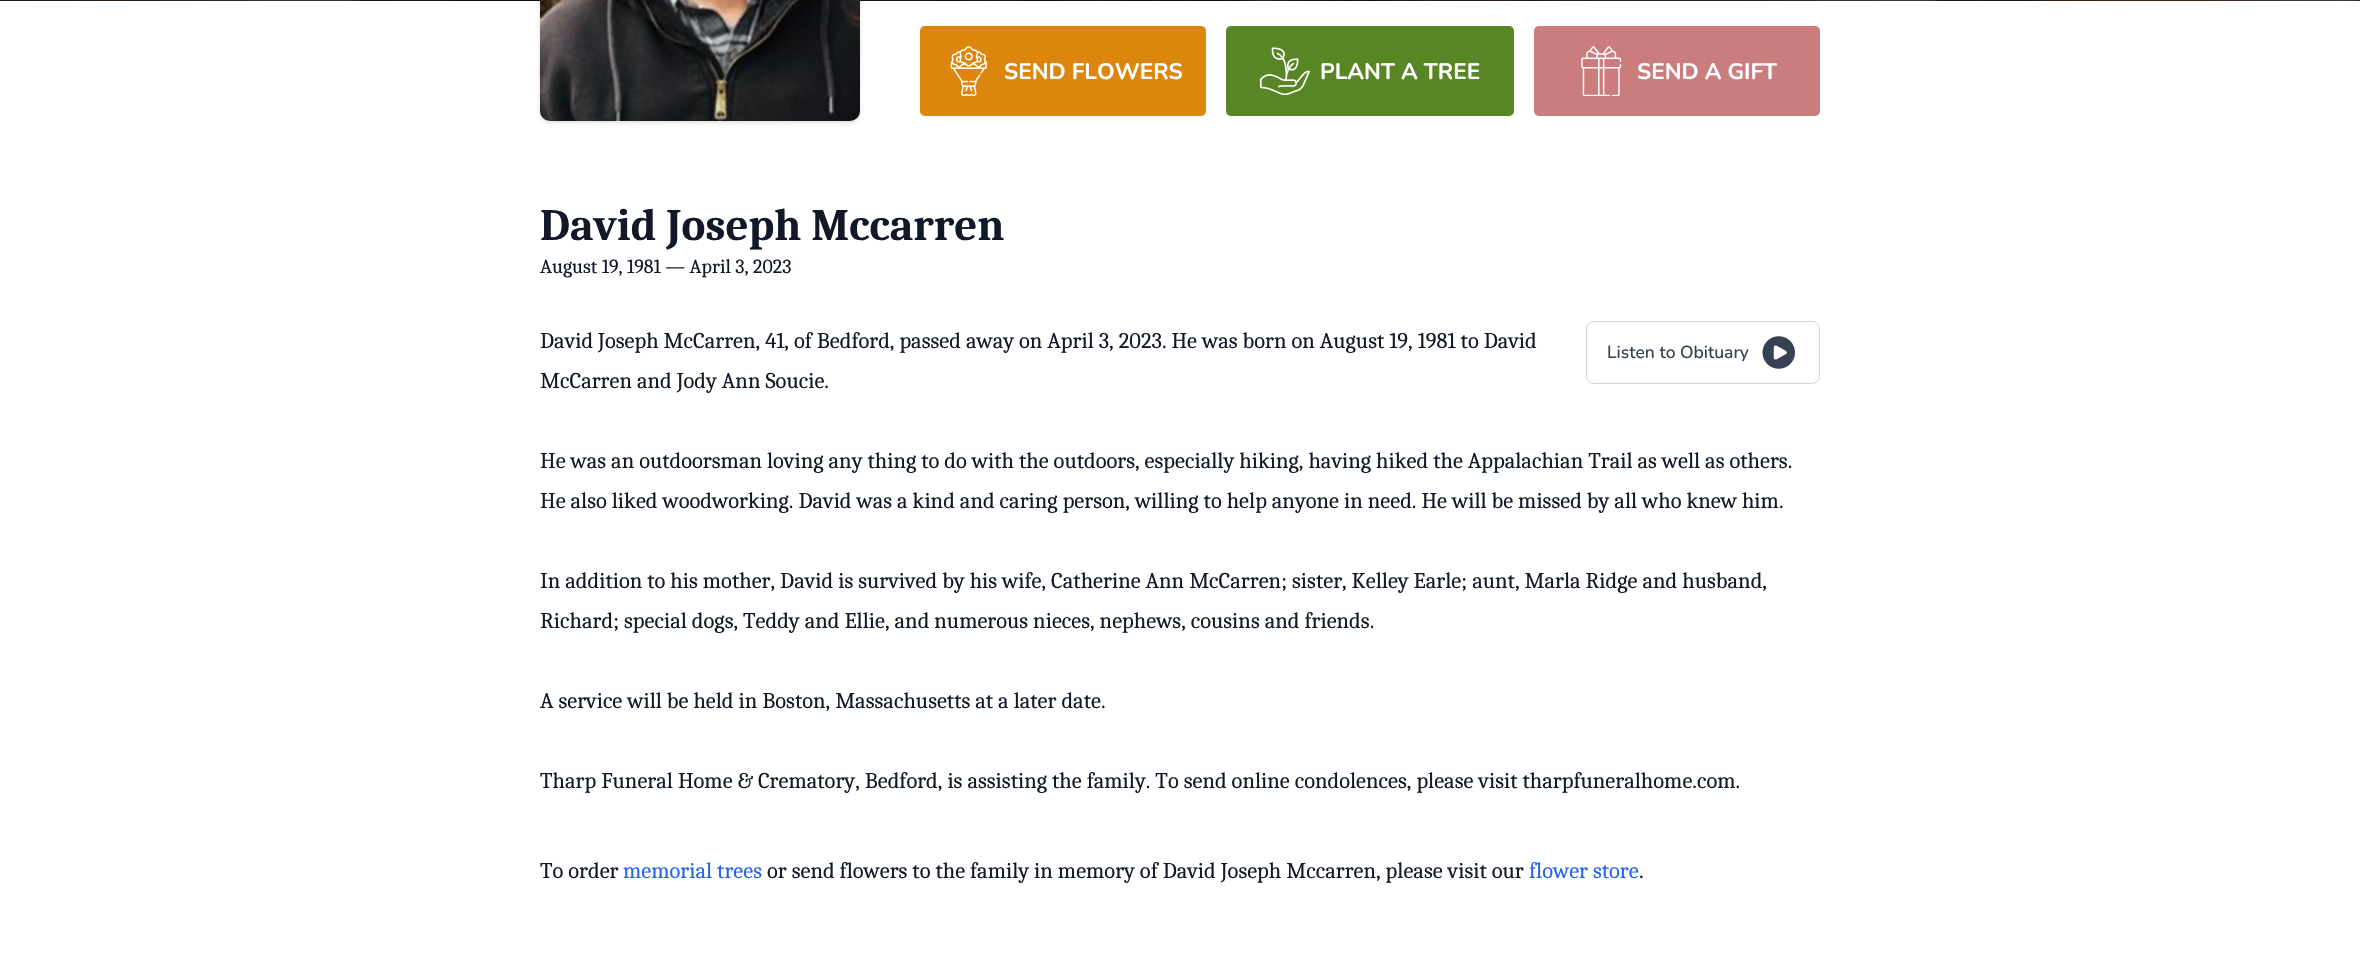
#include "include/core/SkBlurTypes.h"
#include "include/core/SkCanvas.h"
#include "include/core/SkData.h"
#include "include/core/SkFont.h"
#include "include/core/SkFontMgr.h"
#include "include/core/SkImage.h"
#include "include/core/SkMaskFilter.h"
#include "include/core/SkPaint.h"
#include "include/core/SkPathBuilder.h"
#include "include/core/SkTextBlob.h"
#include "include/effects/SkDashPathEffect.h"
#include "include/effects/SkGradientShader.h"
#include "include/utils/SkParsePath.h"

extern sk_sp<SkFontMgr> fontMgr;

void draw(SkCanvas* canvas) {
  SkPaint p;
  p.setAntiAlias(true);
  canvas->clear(SK_ColorWHITE);
  canvas->drawImageRect(SkImages::DeferredFromEncodedData(SkData::MakeFromFileName("images/1.png")), SkRect::MakeLTRB(0, 0, 2360, 1), SkSamplingOptions());
  p.setColor(SkColorSetARGB(26, 0, 0, 0));
  p.setMaskFilter(SkMaskFilter::MakeBlur(kNormal_SkBlurStyle, 1));
  canvas->drawRoundRect(SkRect::MakeLTRB(541, -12, 859, 121), 9, 9, p);
  p.setMaskFilter(nullptr);
  p.setMaskFilter(SkMaskFilter::MakeBlur(kNormal_SkBlurStyle, 2));
  canvas->drawRoundRect(SkRect::MakeLTRB(540, -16, 860, 123), 10, 10, p);
  p.setMaskFilter(nullptr);
  canvas->drawImageRect(SkImages::DeferredFromEncodedData(SkData::MakeFromFileName("images/2.png")), SkRect::MakeLTRB(540, 0, 860, 121), SkSamplingOptions());
  p.setColor(SkColorSetRGB(220, 134, 13));
  canvas->drawRoundRect(SkRect::MakeLTRB(920, 26, 1206, 116), 5, 5, p);
  canvas->drawImageRect(SkImages::DeferredFromEncodedData(SkData::MakeFromFileName("images/3.png")), SkRect::MakeLTRB(950, 46, 987, 96), SkSamplingOptions());
  p.setColor(SkColorSetRGB(88, 134, 36));
  canvas->drawRoundRect(SkRect::MakeLTRB(1226, 26, 1514, 116), 5, 5, p);
  canvas->drawImageRect(SkImages::DeferredFromEncodedData(SkData::MakeFromFileName("images/4.png")), SkRect::MakeLTRB(1260, 47, 1310, 96), SkSamplingOptions());
  p.setColor(SkColorSetRGB(203, 124, 124));
  canvas->drawRoundRect(SkRect::MakeLTRB(1534, 26, 1820, 116), 5, 5, p);
  canvas->drawImageRect(SkImages::DeferredFromEncodedData(SkData::MakeFromFileName("images/5.png")), SkRect::MakeLTRB(1581, 46, 1622, 96), SkSamplingOptions());
  p.setStyle(SkPaint::kStroke_Style);
  p.setStrokeWidth(1);
  p.setColor(SkColorSetRGB(209, 213, 219));
  canvas->drawRoundRect(SkRect::MakeLTRB(1586.5f, 321.5f, 1819.5f, 383.5f), 7.5f, 7.5f, p);
  canvas->drawImageRect(SkImages::DeferredFromEncodedData(SkData::MakeFromFileName("images/6.png")), SkRect::MakeLTRB(1762, 336, 1795, 369), SkSamplingOptions());
  SkFont font1(fontMgr->matchFamilyStyle("Nunito", SkFontStyle::Bold()), 22.5f);
  font1.setSubpixel(true);
  p.setStyle(SkPaint::kFill_Style);
  p.setColor(SK_ColorWHITE);
  canvas->drawString("SEND FLOWERS", 1004, 79, font1, p);
  canvas->drawString("PLANT A TREE", 1320, 79, font1, p);
  canvas->drawString("SEND A GIFT", 1637, 79, font1, p);
  SkFont font2(fontMgr->matchFamilyStyle("Caladea", SkFontStyle::Bold()), 45);
  font2.setSubpixel(true);
  p.setColor(SkColorSetRGB(17, 24, 39));
  canvas->drawString("David Joseph Mccarren", 540, 240, font2, p);
  SkFont font3(fontMgr->matchFamilyStyle("Caladea", SkFontStyle::Normal()), 20);
  font3.setSubpixel(true);
  canvas->drawString("August 19, 1981 — April 3, 2023", 540, 273, font3, p);
  SkFont font4(fontMgr->matchFamilyStyle("Caladea", SkFontStyle::Normal()), 22.5f);
  font4.setSubpixel(true);
  canvas->drawString("David Joseph McCarren, 41, of Bedford, passed away on April 3, 2023. He was born on August 19, 1981 to David", 540, 348, font4, p);
  canvas->drawString("McCarren and Jody Ann Soucie.", 540, 388, font4, p);
  canvas->drawString("He was an outdoorsman loving any thing to do with the outdoors, especially hiking, having hiked the Appalachian Trail as well as others.", 540, 468, font4, p);
  canvas->drawString("He also liked woodworking. David was a kind and caring person, willing to help anyone in need. He will be missed by all who knew him.", 540, 508, font4, p);
  canvas->drawString("In addition to his mother, David is survived by his wife, Catherine Ann McCarren; sister, Kelley Earle; aunt, Marla Ridge and husband,", 540, 588, font4, p);
  canvas->drawString("Richard; special dogs, Teddy and Ellie, and numerous nieces, nephews, cousins and friends.", 540, 628, font4, p);
  canvas->drawString("A service will be held in Boston, Massachusetts at a later date.", 540, 708, font4, p);
  canvas->drawString("Tharp Funeral Home & Crematory, Bedford, is assisting the family. To send online condolences, please visit tharpfuneralhome.com.", 540, 788, font4, p);
  SkFont font5(fontMgr->matchFamilyStyle("Nunito", SkFontStyle(500, SkFontStyle::kNormal_Width, SkFontStyle::kUpright_Slant)), 17.5f);
  font5.setSubpixel(true);
  p.setColor(SkColorSetRGB(55, 65, 81));
  canvas->drawString("Listen to Obituary", 1607, 358, font5, p);
  p.setColor(SkColorSetRGB(17, 24, 39));
  canvas->drawString("To order", 540, 878, font4, p);
  p.setColor(SkColorSetRGB(37, 99, 235));
  canvas->drawString("memorial trees", 623, 878, font4, p);
  p.setColor(SkColorSetRGB(17, 24, 39));
  canvas->drawString("or send flowers to the family in memory of David Joseph Mccarren, please visit our", 767, 878, font4, p);
  p.setColor(SkColorSetRGB(37, 99, 235));
  canvas->drawString("flower store", 1529, 878, font4, p);
  p.setColor(SkColorSetRGB(17, 24, 39));
  canvas->drawString(".", 1639, 878, font4, p);
}
